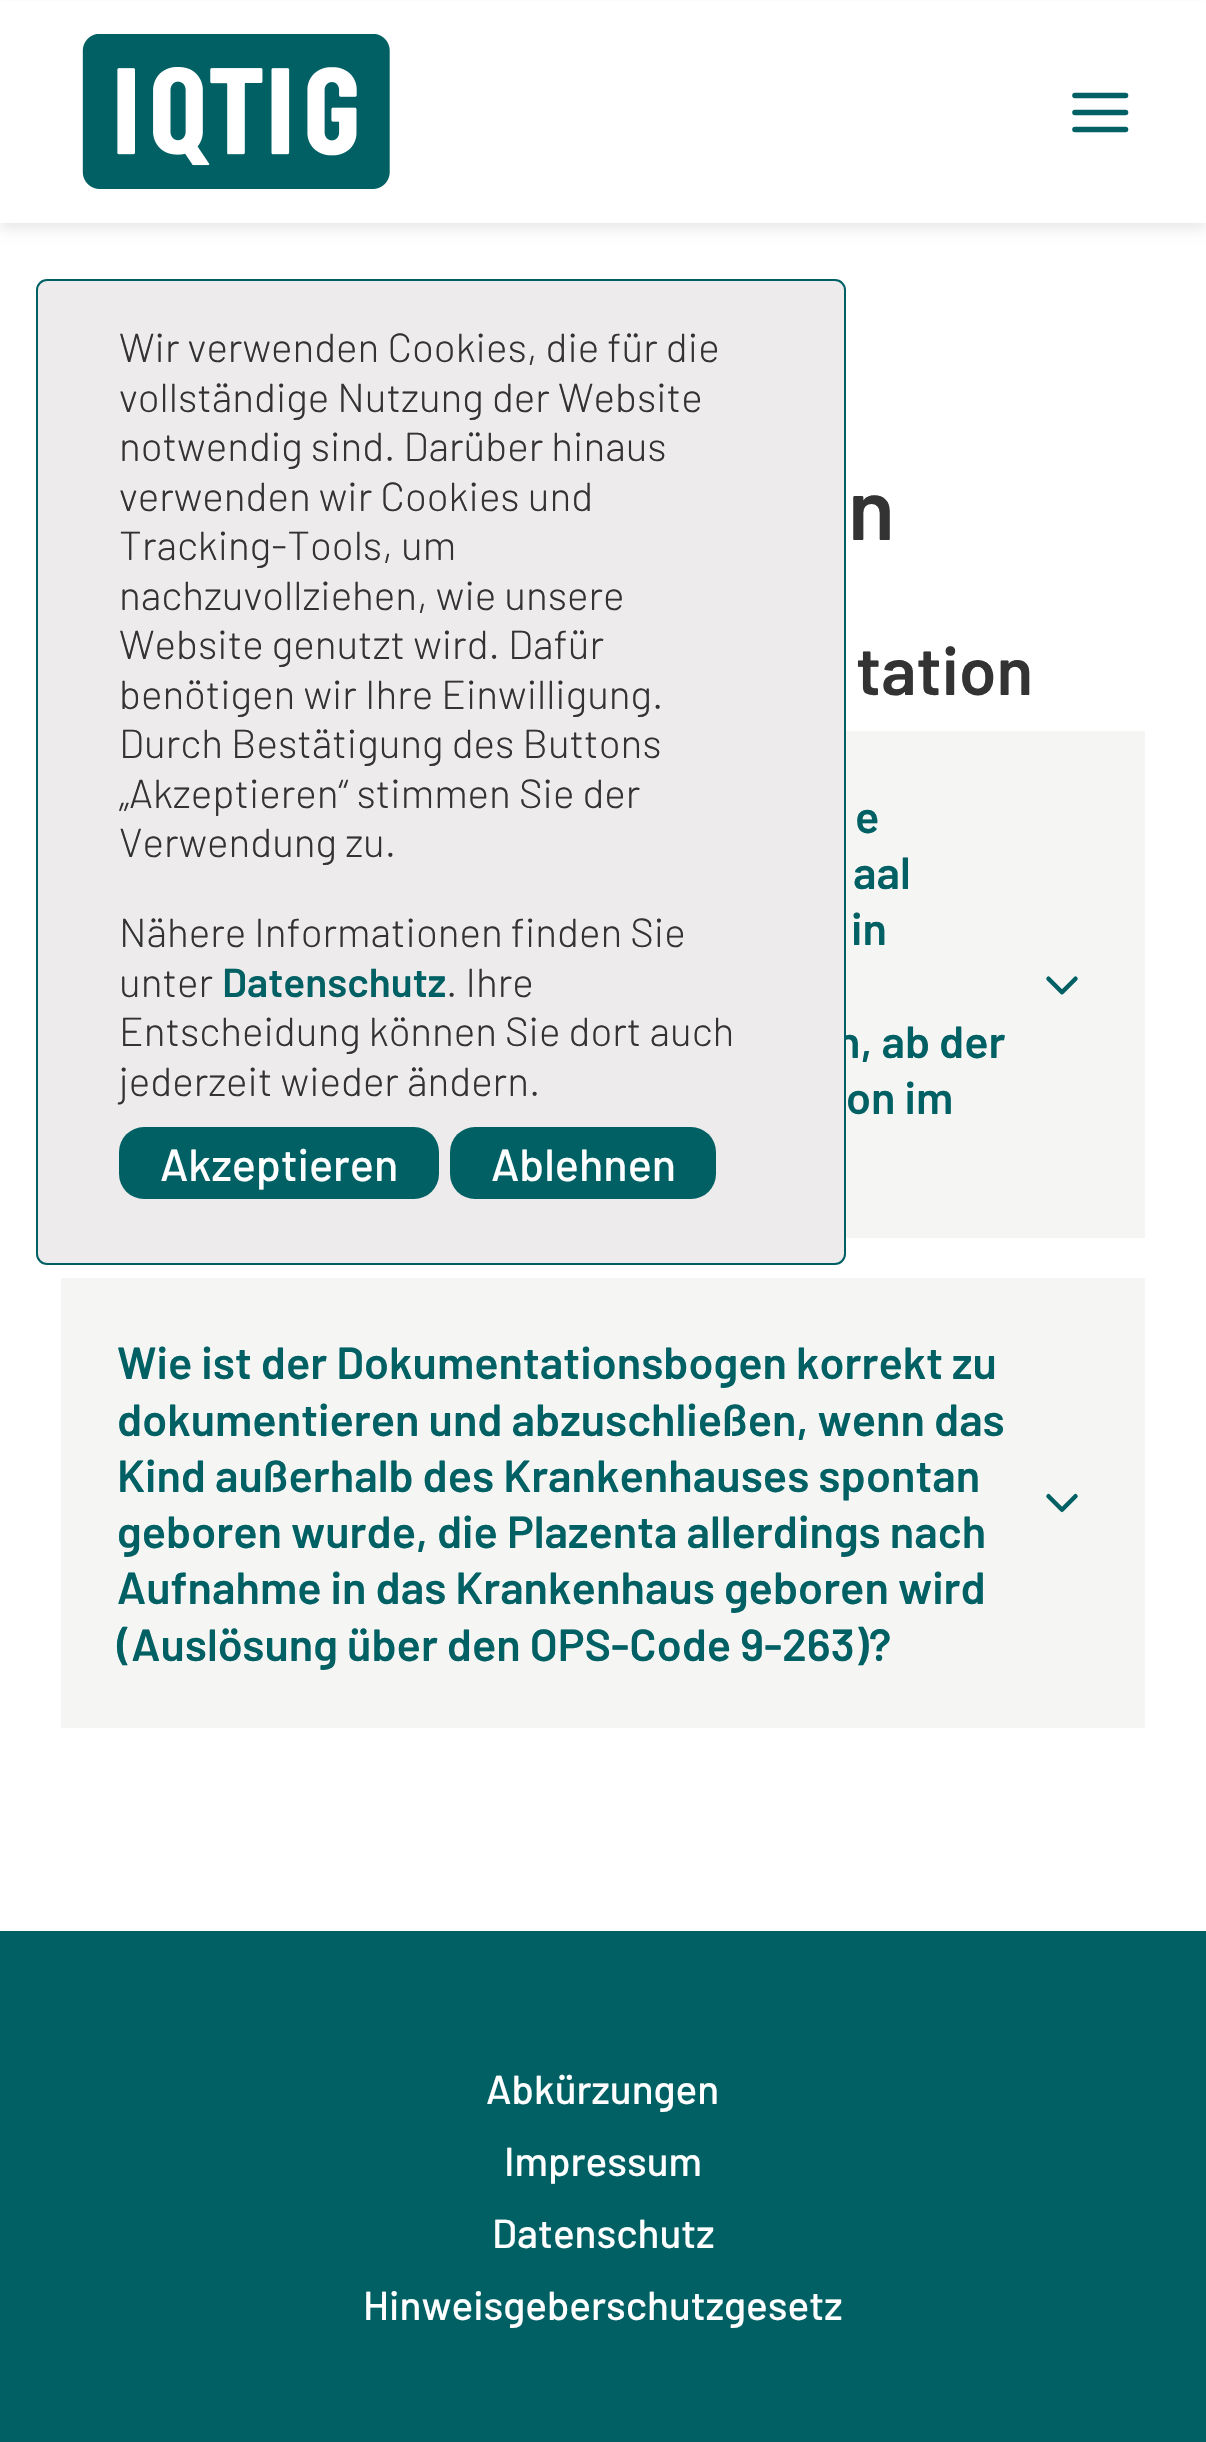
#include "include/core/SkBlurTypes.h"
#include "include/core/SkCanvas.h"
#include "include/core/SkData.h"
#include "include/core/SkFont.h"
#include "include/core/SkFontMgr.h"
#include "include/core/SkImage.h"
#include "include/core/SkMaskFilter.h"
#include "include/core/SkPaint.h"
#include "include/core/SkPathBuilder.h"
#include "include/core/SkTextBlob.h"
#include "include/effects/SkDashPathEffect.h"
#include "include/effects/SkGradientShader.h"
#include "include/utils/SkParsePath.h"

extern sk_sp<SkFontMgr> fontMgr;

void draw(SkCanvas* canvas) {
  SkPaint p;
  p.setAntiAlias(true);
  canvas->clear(SK_ColorWHITE);
  p.setColor(SkColorSetARGB(20, 0, 0, 0));
  p.setMaskFilter(SkMaskFilter::MakeBlur(kNormal_SkBlurStyle, 5.5f));
  canvas->drawRect(SkRect::MakeLTRB(0, 7, 1206, 230), p);
  p.setMaskFilter(nullptr);
  p.setColor(SK_ColorWHITE);
  canvas->drawRect(SkRect::MakeLTRB(0, 1, 1206, 223), p);
  canvas->drawImageRect(SkImages::DeferredFromEncodedData(SkData::MakeFromFileName("images/1.png")), SkRect::MakeLTRB(82, 34, 390, 189), SkSamplingOptions());
  p.setStyle(SkPaint::kStroke_Style);
  p.setStrokeWidth(5.6f);
  p.setStrokeCap(SkPaint::kRound_Cap);
  p.setStrokeJoin(SkPaint::kRound_Join);
  p.setColor(SkColorSetRGB(0, 96, 100));
  canvas->drawPath(SkPathBuilder().moveTo(1075, 112.5f).lineTo(1125.5f, 112.5f).moveTo(1075, 95.5f).lineTo(1125.5f, 95.5f).moveTo(1075, 129.5f).lineTo(1125.5f, 129.5f).detach(), p);
  p.setStyle(SkPaint::kFill_Style);
  p.setColor(SkColorSetRGB(245, 245, 243));
  canvas->drawRect(SkRect::MakeLTRB(846, 731, 1145, 1238), p);
  canvas->drawImageRect(SkImages::DeferredFromEncodedData(SkData::MakeFromFileName("images/2.png")), SkRect::MakeLTRB(1046, 976, 1078, 995), SkSamplingOptions());
  canvas->drawRect(SkRect::MakeLTRB(61, 1278, 1145, 1728), p);
  canvas->drawImageRect(SkImages::DeferredFromEncodedData(SkData::MakeFromFileName("images/3.png")), SkRect::MakeLTRB(1046, 1493, 1078, 1513), SkSamplingOptions());
  p.setColor(SkColorSetRGB(0, 96, 100));
  canvas->drawRect(SkRect::MakeLTRB(0, 1931, 1206, 2442), p);
  SkFont font1(fontMgr->matchFamilyStyle("Barlow", SkFontStyle(600, SkFontStyle::kNormal_Width, SkFontStyle::kUpright_Slant)), 86);
  font1.setSubpixel(true);
  p.setColor(SkColorSetRGB(51, 51, 51));
  canvas->drawString("n", 848, 540, font1, p);
  SkFont font2(fontMgr->matchFamilyStyle("Barlow", SkFontStyle(600, SkFontStyle::kNormal_Width, SkFontStyle::kUpright_Slant)), 67.5f);
  font2.setSubpixel(true);
  canvas->drawString("tation", 856, 695, font2, p);
  SkFont font3(fontMgr->matchFamilyStyle("Barlow", SkFontStyle(600, SkFontStyle::kNormal_Width, SkFontStyle::kUpright_Slant)), 45);
  font3.setSubpixel(true);
  p.setColor(SkColorSetRGB(0, 96, 100));
  canvas->drawString("e", 855, 833, font3, p);
  canvas->drawString("aal", 853, 889, font3, p);
  canvas->drawString("in", 851, 945, font3, p);
  canvas->drawString("n, ab der", 836, 1058, font3, p);
  p.setColor(SkColorSetRGB(237, 235, 235));
  canvas->drawRoundRect(SkRect::MakeLTRB(37, 280, 845, 1264), 10, 10, p);
  p.setStyle(SkPaint::kStroke_Style);
  p.setStrokeWidth(2);
  p.setStrokeCap(SkPaint::kButt_Cap);
  p.setStrokeJoin(SkPaint::kMiter_Join);
  p.setColor(SkColorSetRGB(0, 96, 100));
  canvas->drawRoundRect(SkRect::MakeLTRB(37, 280, 845, 1264), 10, 10, p);
  p.setStyle(SkPaint::kFill_Style);
  canvas->drawRoundRect(SkRect::MakeLTRB(450, 1127, 716, 1199), 25, 25, p);
  SkFont font4(fontMgr->matchFamilyStyle("Barlow", SkFontStyle(500, SkFontStyle::kNormal_Width, SkFontStyle::kUpright_Slant)), 45);
  font4.setSubpixel(true);
  p.setColor(SK_ColorWHITE);
  canvas->drawString("Ablehnen", 491, 1181, font4, p);
  p.setColor(SkColorSetRGB(0, 96, 100));
  canvas->drawRoundRect(SkRect::MakeLTRB(119, 1127, 439, 1199), 25, 25, p);
  p.setColor(SK_ColorWHITE);
  canvas->drawString("Akzeptieren", 160, 1181, font4, p);
  SkFont font5(fontMgr->matchFamilyStyle("Barlow", SkFontStyle(300, SkFontStyle::kNormal_Width, SkFontStyle::kUpright_Slant)), 40.5f);
  font5.setSubpixel(true);
  p.setColor(SkColorSetRGB(51, 51, 51));
  canvas->drawString("jederzeit wieder ändern.", 119, 1096, font5, p);
  canvas->drawString("Entscheidung können Sie dort auch", 119, 1046, font5, p);
  canvas->drawString(". Ihre", 446, 997, font5, p);
  SkFont font6(fontMgr->matchFamilyStyle("Barlow", SkFontStyle(600, SkFontStyle::kNormal_Width, SkFontStyle::kUpright_Slant)), 40.5f);
  font6.setSubpixel(true);
  p.setColor(SkColorSetRGB(0, 96, 100));
  canvas->drawString("Datenschutz", 222, 997, font6, p);
  p.setColor(SkColorSetRGB(51, 51, 51));
  canvas->drawString("unter", 119, 997, font5, p);
  canvas->drawString("Nähere Informationen finden Sie", 119, 947, font5, p);
  canvas->drawString("Verwendung zu.", 119, 857, font5, p);
  canvas->drawString("„Akzeptieren“ stimmen Sie der", 119, 808, font5, p);
  canvas->drawString("Durch Bestätigung des Buttons", 119, 758, font5, p);
  canvas->drawString("benötigen wir Ihre Einwilligung.", 119, 709, font5, p);
  canvas->drawString("Website genutzt wird. Dafür", 119, 659, font5, p);
  canvas->drawString("nachzuvollziehen, wie unsere", 119, 610, font5, p);
  canvas->drawString("Tracking-Tools, um", 119, 560, font5, p);
  canvas->drawString("verwenden wir Cookies und", 119, 511, font5, p);
  canvas->drawString("notwendig sind. Darüber hinaus", 119, 461, font5, p);
  canvas->drawString("vollständige Nutzung der Website", 119, 412, font5, p);
  canvas->drawString("Wir verwenden Cookies, die für die", 119, 362, font5, p);
  p.setColor(SkColorSetRGB(0, 96, 100));
  canvas->drawString("on im", 846, 1114, font3, p);
  canvas->drawString("Wie ist der Dokumentationsbogen korrekt zu", 117, 1379, font3, p);
  canvas->drawString("dokumentieren und abzuschließen, wenn das", 117, 1436, font3, p);
  canvas->drawString("Kind außerhalb des Krankenhauses spontan", 117, 1492, font3, p);
  canvas->drawString("geboren wurde, die Plazenta allerdings nach", 117, 1548, font3, p);
  canvas->drawString("Aufnahme in das Krankenhaus geboren wird", 117, 1604, font3, p);
  canvas->drawString("(Auslösung über den OPS-Code 9-263)?", 117, 1661, font3, p);
  SkFont font7(fontMgr->matchFamilyStyle("Barlow", SkFontStyle(500, SkFontStyle::kNormal_Width, SkFontStyle::kUpright_Slant)), 40.5f);
  font7.setSubpixel(true);
  p.setColor(SK_ColorWHITE);
  canvas->drawString("Abkürzungen", 486, 2104, font7, p);
  canvas->drawString("Impressum", 504, 2176, font7, p);
  canvas->drawString("Datenschutz", 492, 2248, font7, p);
  canvas->drawString("Hinweisgeberschutzgesetz", 363, 2320, font7, p);
}
